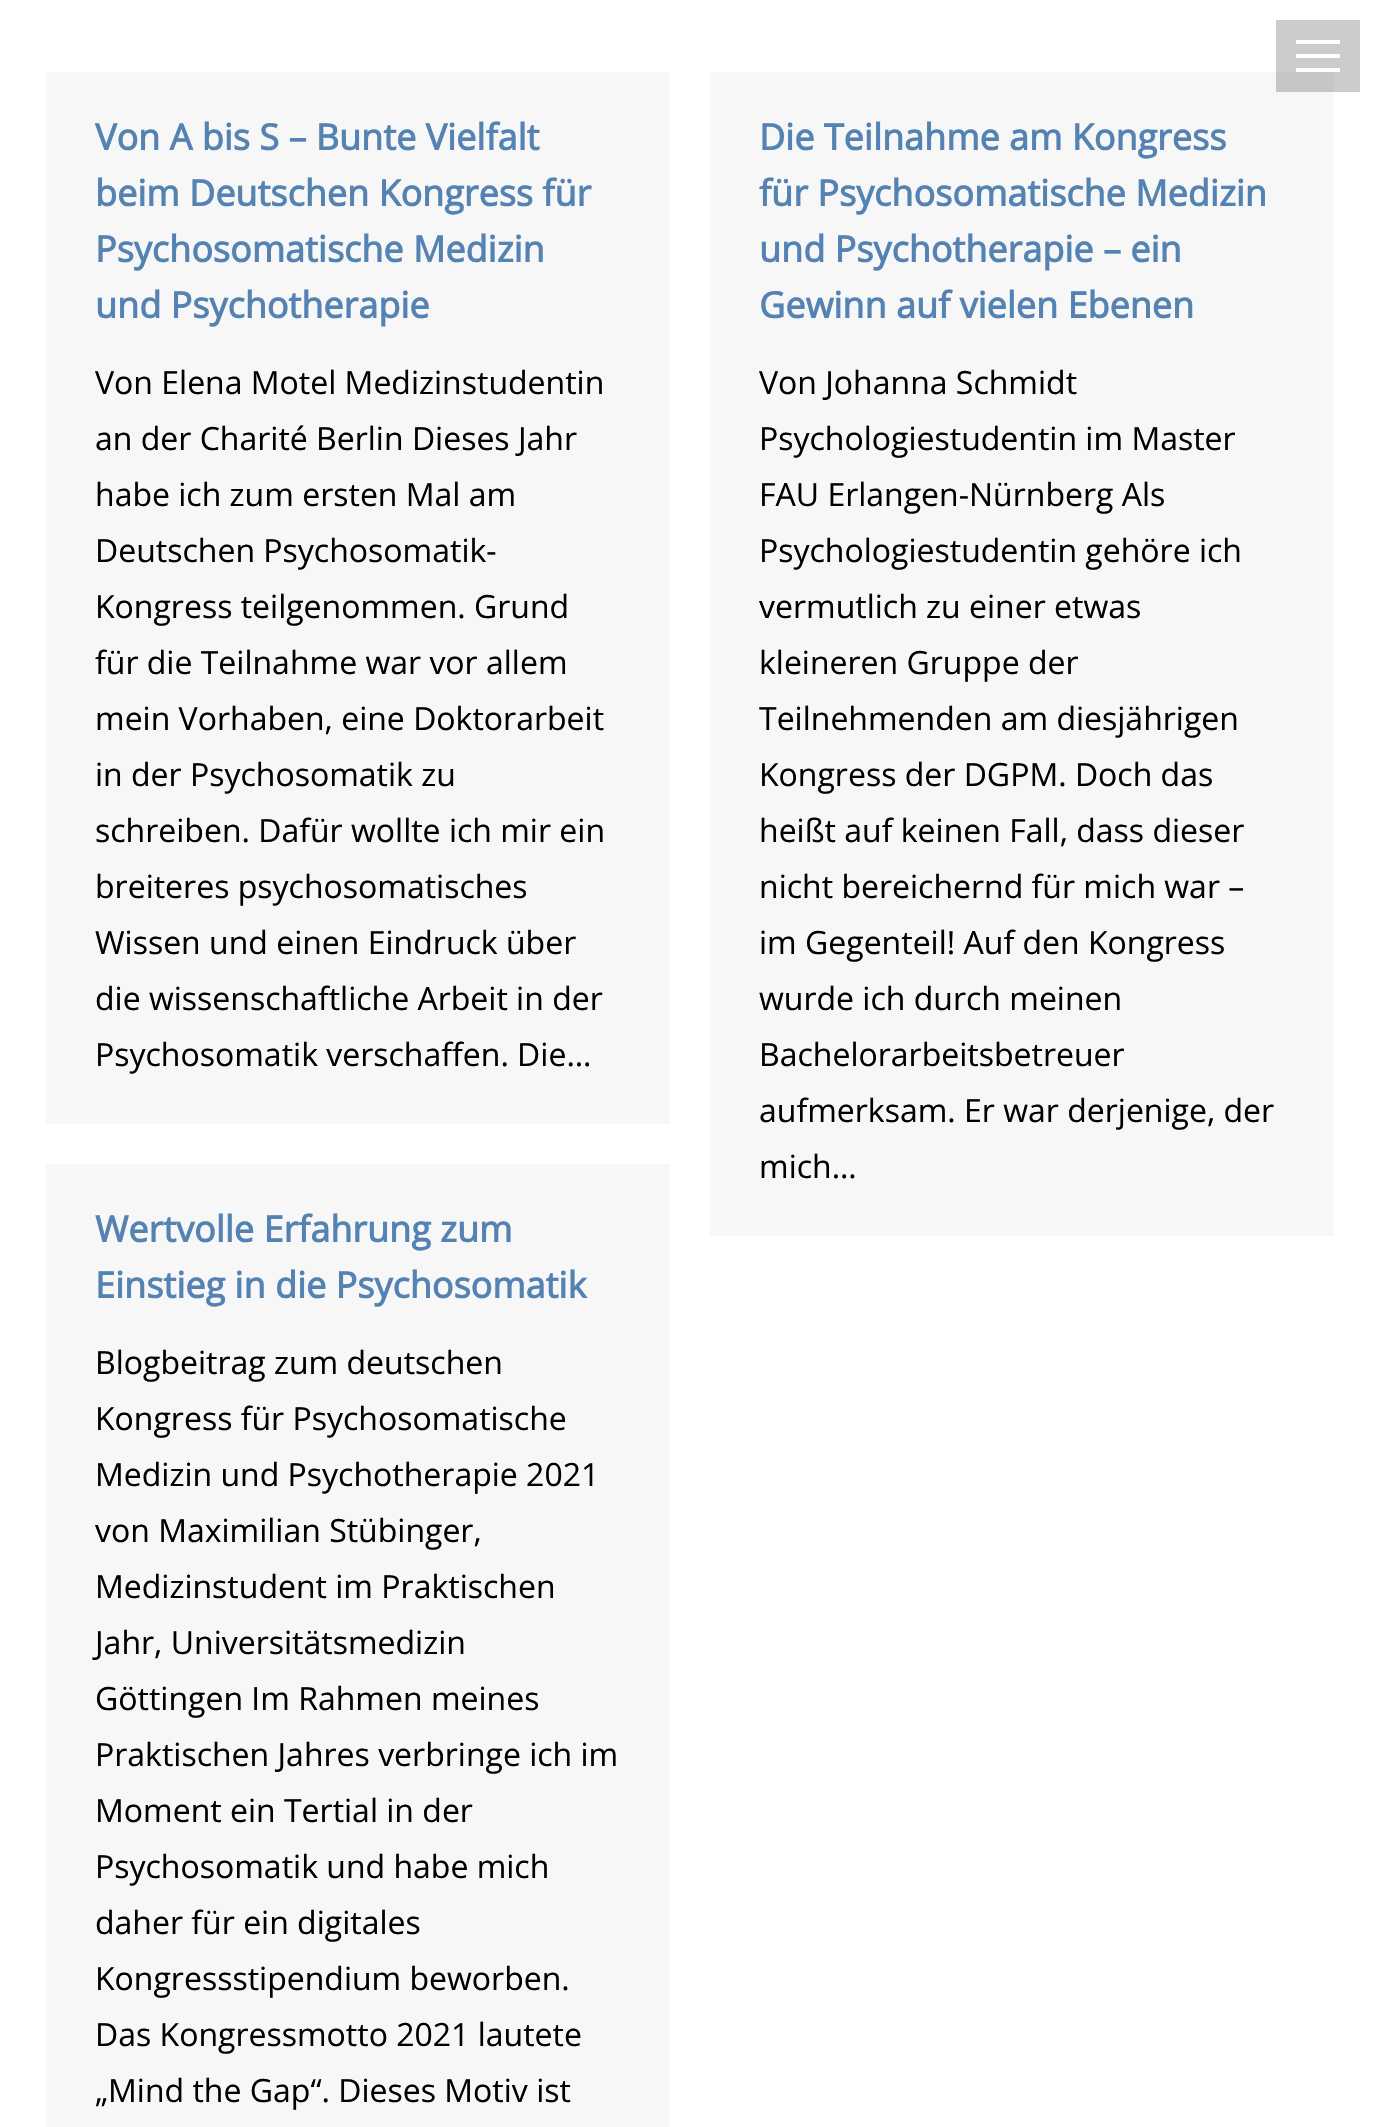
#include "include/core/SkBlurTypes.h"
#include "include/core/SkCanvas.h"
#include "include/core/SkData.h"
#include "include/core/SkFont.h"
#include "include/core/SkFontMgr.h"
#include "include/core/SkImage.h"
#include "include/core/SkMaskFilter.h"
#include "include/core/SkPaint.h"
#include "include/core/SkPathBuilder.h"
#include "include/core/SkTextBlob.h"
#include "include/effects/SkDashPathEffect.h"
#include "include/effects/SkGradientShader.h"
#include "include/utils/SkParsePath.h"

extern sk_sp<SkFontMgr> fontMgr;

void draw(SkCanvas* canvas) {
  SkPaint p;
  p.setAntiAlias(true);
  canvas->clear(SK_ColorWHITE);
  p.setColor(SkColorSetRGB(204, 204, 204));
  canvas->drawRect(SkRect::MakeLTRB(1276, 20, 1360, 92), p);
  p.setColor(SK_ColorWHITE);
  canvas->drawRect(SkRect::MakeLTRB(1296, 40, 1340, 44), p);
  canvas->drawRect(SkRect::MakeLTRB(1296, 54, 1340, 58), p);
  canvas->drawRect(SkRect::MakeLTRB(1296, 68, 1340, 72), p);
  p.setColor(SkColorSetRGB(247, 247, 247));
  canvas->drawRect(SkRect::MakeLTRB(46, 72, 670, 1124), p);
  canvas->drawRect(SkRect::MakeLTRB(710, 72, 1334, 1236), p);
  p.setColor(SkColorSetRGB(198, 198, 198));
  canvas->drawRect(SkRect::MakeLTRB(1276, 72, 1334, 92), p);
  p.setColor(SkColorSetRGB(247, 247, 247));
  canvas->drawRect(SkRect::MakeLTRB(46, 1164, 670, 2127), p);
  SkFont font1(fontMgr->matchFamilyStyle("Open Sans", SkFontStyle::Bold()), 36);
  font1.setSubpixel(true);
  p.setColor(SkColorSetRGB(84, 131, 179));
  canvas->drawString("Von A bis S – Bunte Vielfalt", 95, 150, font1, p);
  canvas->drawString("beim Deutschen Kongress für", 95, 206, font1, p);
  canvas->drawString("Psychosomatische Medizin", 95, 262, font1, p);
  canvas->drawString("und Psychotherapie", 95, 318, font1, p);
  SkFont font2(fontMgr->matchFamilyStyle("Open Sans", SkFontStyle::Normal()), 32);
  font2.setSubpixel(true);
  p.setColor(SK_ColorBLACK);
  canvas->drawString("Von Elena Motel Medizinstudentin", 95, 394, font2, p);
  canvas->drawString("an der Charité Berlin Dieses Jahr", 95, 450, font2, p);
  canvas->drawString("habe ich zum ersten Mal am", 95, 506, font2, p);
  canvas->drawString("Deutschen Psychosomatik-", 95, 562, font2, p);
  canvas->drawString("Kongress teilgenommen. Grund", 95, 618, font2, p);
  canvas->drawString("für die Teilnahme war vor allem", 95, 674, font2, p);
  canvas->drawString("mein Vorhaben, eine Doktorarbeit", 95, 730, font2, p);
  canvas->drawString("in der Psychosomatik zu", 95, 786, font2, p);
  canvas->drawString("schreiben. Dafür wollte ich mir ein", 95, 842, font2, p);
  canvas->drawString("breiteres psychosomatisches", 95, 898, font2, p);
  canvas->drawString("Wissen und einen Eindruck über", 95, 954, font2, p);
  canvas->drawString("die wissenschaftliche Arbeit in der", 95, 1010, font2, p);
  canvas->drawString("Psychosomatik verschaffen. Die…", 95, 1066, font2, p);
  p.setColor(SkColorSetRGB(84, 131, 179));
  canvas->drawString("Die Teilnahme am Kongress", 759, 150, font1, p);
  canvas->drawString("für Psychosomatische Medizin", 759, 206, font1, p);
  canvas->drawString("und Psychotherapie – ein", 759, 262, font1, p);
  canvas->drawString("Gewinn auf vielen Ebenen", 759, 318, font1, p);
  p.setColor(SK_ColorBLACK);
  canvas->drawString("Von Johanna Schmidt", 759, 394, font2, p);
  canvas->drawString("Psychologiestudentin im Master", 759, 450, font2, p);
  canvas->drawString("FAU Erlangen-Nürnberg Als", 759, 506, font2, p);
  canvas->drawString("Psychologiestudentin gehöre ich", 759, 562, font2, p);
  canvas->drawString("vermutlich zu einer etwas", 759, 618, font2, p);
  canvas->drawString("kleineren Gruppe der", 759, 674, font2, p);
  canvas->drawString("Teilnehmenden am diesjährigen", 759, 730, font2, p);
  canvas->drawString("Kongress der DGPM. Doch das", 759, 786, font2, p);
  canvas->drawString("heißt auf keinen Fall, dass dieser", 759, 842, font2, p);
  canvas->drawString("nicht bereichernd für mich war –", 759, 898, font2, p);
  canvas->drawString("im Gegenteil! Auf den Kongress", 759, 954, font2, p);
  canvas->drawString("wurde ich durch meinen", 759, 1010, font2, p);
  canvas->drawString("Bachelorarbeitsbetreuer", 759, 1066, font2, p);
  canvas->drawString("aufmerksam. Er war derjenige, der", 759, 1122, font2, p);
  canvas->drawString("mich…", 759, 1178, font2, p);
  p.setColor(SkColorSetRGB(84, 131, 179));
  canvas->drawString("Wertvolle Erfahrung zum", 95, 1242, font1, p);
  canvas->drawString("Einstieg in die Psychosomatik", 95, 1298, font1, p);
  p.setColor(SK_ColorBLACK);
  canvas->drawString("Blogbeitrag zum deutschen", 95, 1374, font2, p);
  canvas->drawString("Kongress für Psychosomatische", 95, 1430, font2, p);
  canvas->drawString("Medizin und Psychotherapie 2021", 95, 1486, font2, p);
  canvas->drawString("von Maximilian Stübinger,", 95, 1542, font2, p);
  canvas->drawString("Medizinstudent im Praktischen", 95, 1598, font2, p);
  canvas->drawString("Jahr, Universitätsmedizin", 95, 1654, font2, p);
  canvas->drawString("Göttingen Im Rahmen meines", 95, 1710, font2, p);
  canvas->drawString("Praktischen Jahres verbringe ich im", 95, 1766, font2, p);
  canvas->drawString("Moment ein Tertial in der", 95, 1822, font2, p);
  canvas->drawString("Psychosomatik und habe mich", 95, 1878, font2, p);
  canvas->drawString("daher für ein digitales", 95, 1934, font2, p);
  canvas->drawString("Kongressstipendium beworben.", 95, 1990, font2, p);
  canvas->drawString("Das Kongressmotto 2021 lautete", 95, 2046, font2, p);
  canvas->drawString("„Mind the Gap“. Dieses Motiv ist", 95, 2102, font2, p);
}
